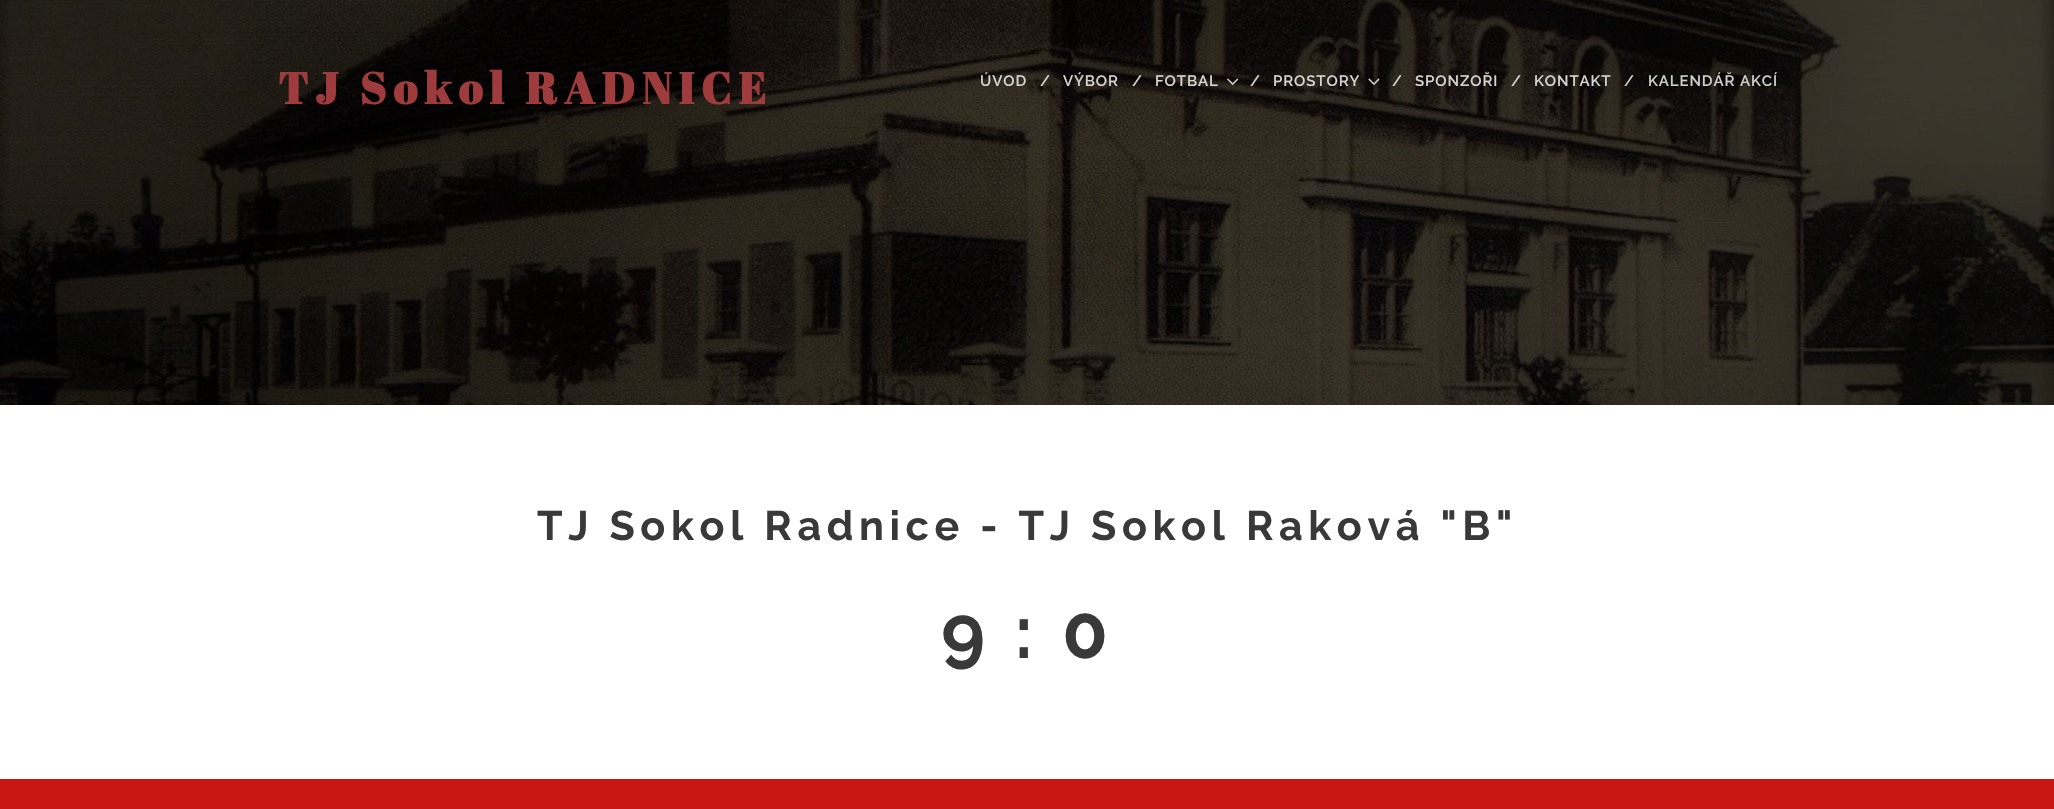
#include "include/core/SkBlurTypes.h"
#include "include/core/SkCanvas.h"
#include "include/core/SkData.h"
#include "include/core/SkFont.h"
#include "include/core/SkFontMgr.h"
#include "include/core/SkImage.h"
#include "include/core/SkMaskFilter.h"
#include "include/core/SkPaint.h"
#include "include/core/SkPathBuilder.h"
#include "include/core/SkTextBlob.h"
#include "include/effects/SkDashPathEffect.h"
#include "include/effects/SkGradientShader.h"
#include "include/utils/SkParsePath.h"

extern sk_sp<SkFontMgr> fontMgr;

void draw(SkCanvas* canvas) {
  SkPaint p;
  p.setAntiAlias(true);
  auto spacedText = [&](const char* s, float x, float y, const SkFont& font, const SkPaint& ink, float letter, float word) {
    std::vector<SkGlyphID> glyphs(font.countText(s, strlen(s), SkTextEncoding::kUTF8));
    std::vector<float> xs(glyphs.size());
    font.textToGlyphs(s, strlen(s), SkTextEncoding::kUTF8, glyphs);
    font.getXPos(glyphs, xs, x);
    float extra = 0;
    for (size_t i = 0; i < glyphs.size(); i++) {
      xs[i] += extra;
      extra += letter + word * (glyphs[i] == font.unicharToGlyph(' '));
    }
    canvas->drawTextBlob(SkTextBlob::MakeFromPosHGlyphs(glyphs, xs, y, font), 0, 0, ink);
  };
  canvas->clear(SK_ColorWHITE);
  canvas->drawImageRect(SkImages::DeferredFromEncodedData(SkData::MakeFromFileName("images/3.png")), SkRect::MakeLTRB(0, 0, 2054, 405), SkSamplingOptions());
  canvas->drawImageRect(SkImages::DeferredFromEncodedData(SkData::MakeFromFileName("images/1.png")), SkRect::MakeLTRB(1227, 78, 1239, 85), SkSamplingOptions());
  canvas->drawImageRect(SkImages::DeferredFromEncodedData(SkData::MakeFromFileName("images/2.png")), SkRect::MakeLTRB(1368, 78, 1380, 85), SkSamplingOptions());
  p.setColor(SkColorSetRGB(203, 23, 20));
  canvas->drawRect(SkRect::MakeLTRB(0, 779, 2054, 809), p);
  SkFont font1(fontMgr->matchFamilyStyle("Abril Fatface", SkFontStyle::Bold()), 44.1f);
  font1.setSubpixel(true);
  p.setColor(SkColorSetRGB(158, 59, 60));
  spacedText("TJ Sokol RADNICE", 278, 104, font1, p, 7, 0);
  SkFont font2(fontMgr->matchFamilyStyle("Raleway", SkFontStyle(600, SkFontStyle::kNormal_Width, SkFontStyle::kUpright_Slant)), 15);
  font2.setSubpixel(true);
  p.setColor(SkColorSetRGB(213, 212, 210));
  spacedText("ÚVOD", 980, 86, font2, p, 0.9f, 0);
  spacedText("/", 1040, 86, font2, p, 0.9f, 0);
  spacedText("VÝBOR", 1063, 86, font2, p, 0.9f, 0);
  spacedText("/", 1132, 86, font2, p, 0.9f, 0);
  spacedText("FOTBAL", 1155, 86, font2, p, 0.9f, 0);
  spacedText("/", 1250, 86, font2, p, 0.9f, 0);
  spacedText("PROSTORY", 1273, 86, font2, p, 0.9f, 0);
  spacedText("/", 1392, 86, font2, p, 0.9f, 0);
  spacedText("SPONZOŘI", 1415, 86, font2, p, 0.9f, 0);
  spacedText("/", 1511, 86, font2, p, 0.9f, 0);
  spacedText("KONTAKT", 1534, 86, font2, p, 0.9f, 0);
  p.setColor(SkColorSetRGB(207, 206, 206));
  spacedText("/", 1624, 86, font2, p, 0.9f, 0);
  spacedText("KALENDÁŘ AKCÍ", 1648, 86, font2, p, 0.9f, 0);
  SkFont font3(fontMgr->matchFamilyStyle("Raleway", SkFontStyle::Bold()), 41.25f);
  font3.setSubpixel(true);
  p.setColor(SkColorSetRGB(57, 57, 57));
  spacedText("TJ Sokol Radnice - TJ Sokol Raková \"B\"", 537, 540, font3, p, 5.6f, 0);
  SkFont font4(fontMgr->matchFamilyStyle("Raleway", SkFontStyle::Bold()), 75);
  font4.setSubpixel(true);
  spacedText("9 : 0", 941, 658, font4, p, 5.6f, 0);
}
